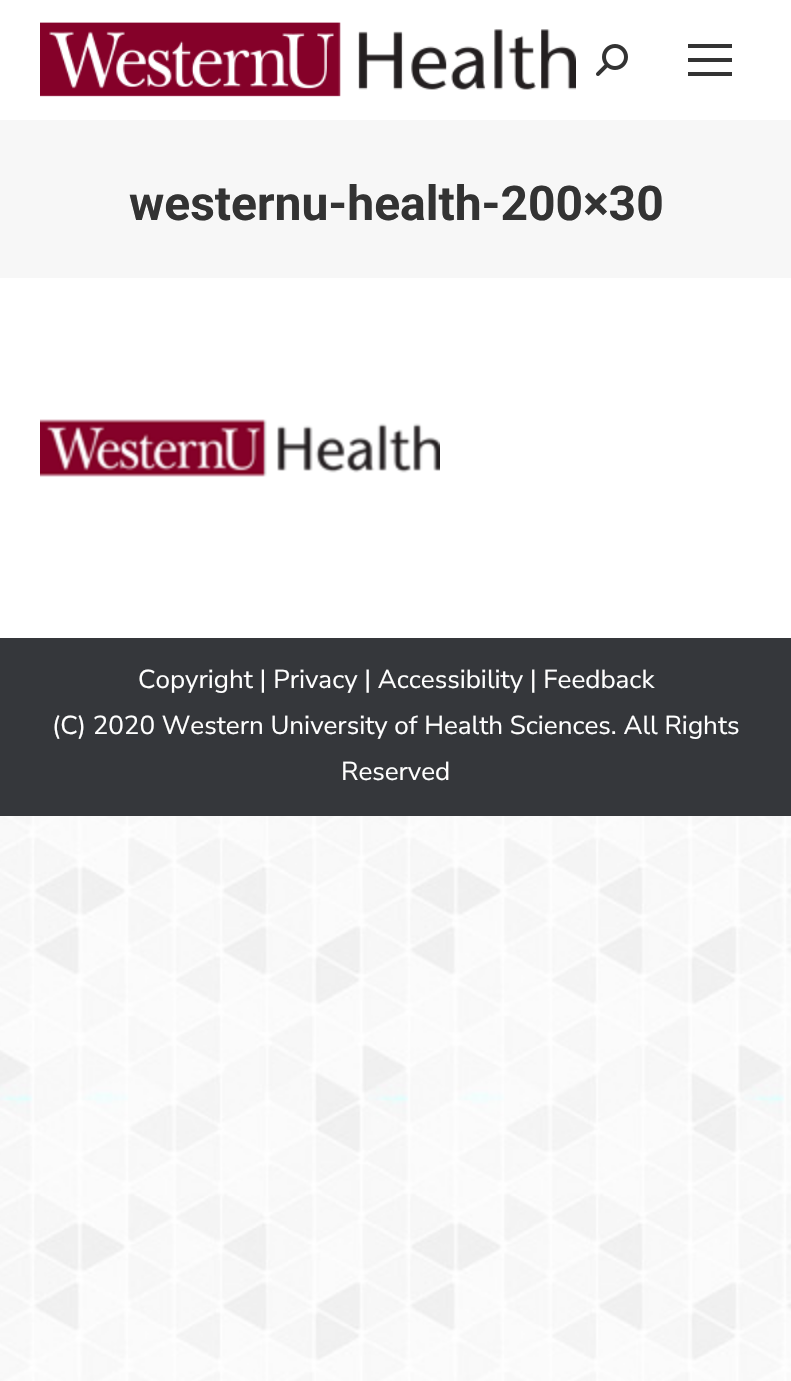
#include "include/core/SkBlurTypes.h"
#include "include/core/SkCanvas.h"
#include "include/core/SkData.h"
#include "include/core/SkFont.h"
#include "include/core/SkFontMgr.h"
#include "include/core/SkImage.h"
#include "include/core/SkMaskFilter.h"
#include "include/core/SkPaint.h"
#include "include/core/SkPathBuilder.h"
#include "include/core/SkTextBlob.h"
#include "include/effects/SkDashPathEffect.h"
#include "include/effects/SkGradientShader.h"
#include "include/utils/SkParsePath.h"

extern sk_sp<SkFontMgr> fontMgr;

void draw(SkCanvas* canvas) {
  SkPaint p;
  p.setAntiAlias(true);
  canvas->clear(SK_ColorWHITE);
  canvas->drawImageRect(SkImages::DeferredFromEncodedData(SkData::MakeFromFileName("images/1.png")), SkRect::MakeLTRB(0, 816, 791, 1381), SkSamplingOptions());
  canvas->drawImageRect(SkImages::DeferredFromEncodedData(SkData::MakeFromFileName("images/2.png")), SkRect::MakeLTRB(40, 22, 576, 97), SkSamplingOptions());
  canvas->drawImageRect(SkImages::DeferredFromEncodedData(SkData::MakeFromFileName("images/3.png")), SkRect::MakeLTRB(596, 44, 628, 76), SkSamplingOptions());
  p.setColor(SkColorSetRGB(51, 51, 51));
  canvas->drawRect(SkRect::MakeLTRB(688, 44, 732, 48), p);
  canvas->drawRect(SkRect::MakeLTRB(688, 58, 732, 62), p);
  canvas->drawRect(SkRect::MakeLTRB(688, 72, 732, 76), p);
  p.setColor(SkColorSetRGB(247, 247, 247));
  canvas->drawRect(SkRect::MakeLTRB(0, 120, 791, 278), p);
  canvas->drawImageRect(SkImages::DeferredFromEncodedData(SkData::MakeFromFileName("images/4.png")), SkRect::MakeLTRB(40, 419, 440, 477), SkSamplingOptions());
  p.setColor(SkColorSetRGB(53, 55, 59));
  canvas->drawRect(SkRect::MakeLTRB(0, 638, 791, 816), p);
  SkFont font1(fontMgr->matchFamilyStyle("Roboto", SkFontStyle::Bold()), 48);
  font1.setSubpixel(true);
  p.setColor(SkColorSetRGB(51, 51, 51));
  canvas->drawString("westernu-health-200×30", 129, 220, font1, p);
  SkFont font2(fontMgr->matchFamilyStyle("Nunito Sans", SkFontStyle::Normal()), 26);
  font2.setSubpixel(true);
  p.setColor(SK_ColorWHITE);
  canvas->drawString("Copyright | Privacy | Accessibility | Feedback", 138, 688, font2, p);
  canvas->drawString("(C) 2020 Western University of Health Sciences. All Rights", 52, 734, font2, p);
  canvas->drawString("Reserved", 341, 780, font2, p);
}
